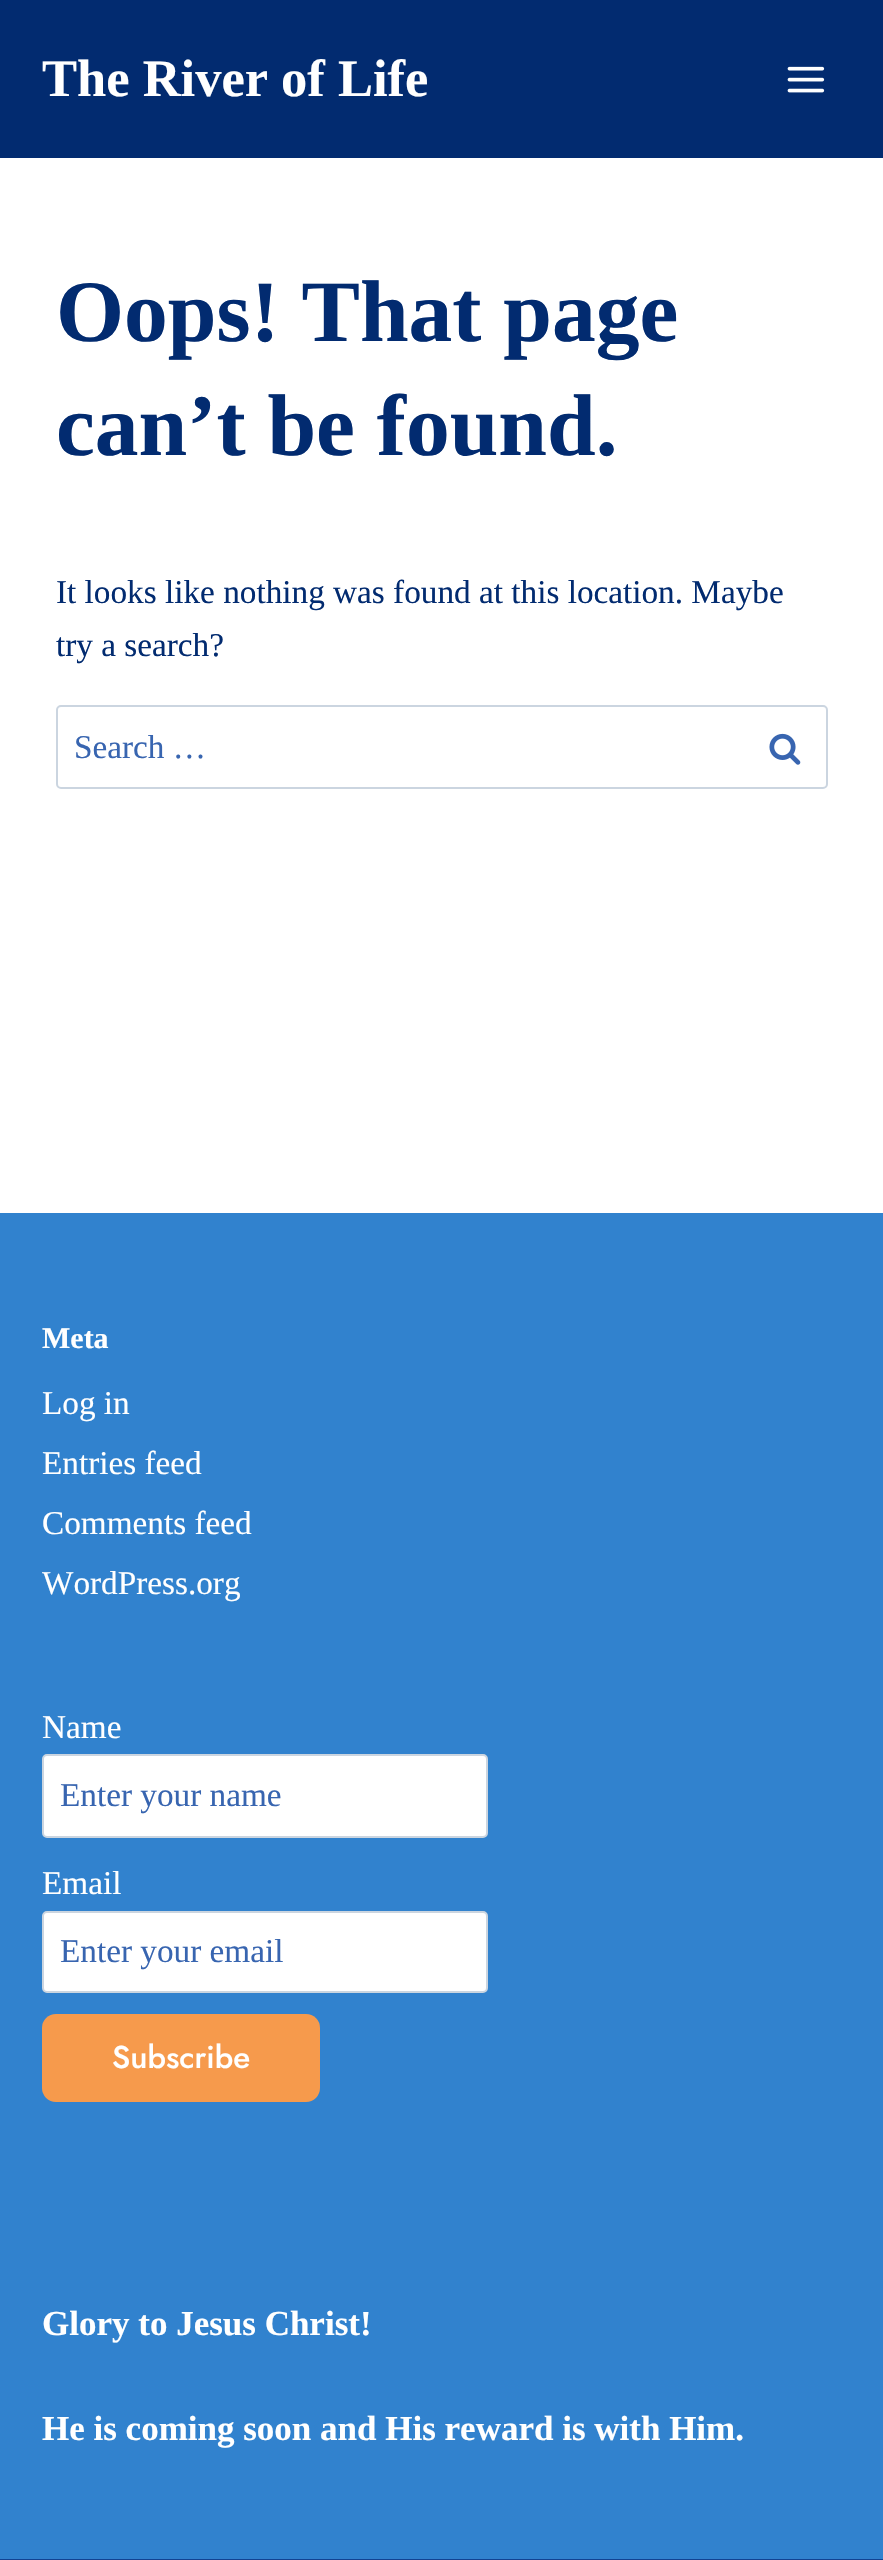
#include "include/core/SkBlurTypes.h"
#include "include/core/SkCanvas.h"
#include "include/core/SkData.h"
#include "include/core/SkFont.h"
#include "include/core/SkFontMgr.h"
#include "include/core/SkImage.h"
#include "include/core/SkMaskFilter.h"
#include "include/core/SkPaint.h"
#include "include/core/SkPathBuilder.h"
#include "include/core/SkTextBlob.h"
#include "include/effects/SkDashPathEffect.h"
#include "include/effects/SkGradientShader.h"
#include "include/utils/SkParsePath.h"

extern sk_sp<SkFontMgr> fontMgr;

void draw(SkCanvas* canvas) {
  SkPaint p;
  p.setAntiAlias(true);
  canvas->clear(SK_ColorWHITE);
  p.setColor(SkColorSetRGB(2, 43, 112));
  canvas->drawRect(SkRect::MakeLTRB(0, 0, 883, 158), p);
  canvas->drawImageRect(SkImages::DeferredFromEncodedData(SkData::MakeFromFileName("images/1.png")), SkRect::MakeLTRB(787, 66, 825, 93), SkSamplingOptions());
  p.setStyle(SkPaint::kStroke_Style);
  p.setStrokeWidth(2);
  p.setColor(SkColorSetRGB(203, 213, 224));
  canvas->drawRoundRect(SkRect::MakeLTRB(57, 706, 827, 788), 4, 4, p);
  canvas->drawImageRect(SkImages::DeferredFromEncodedData(SkData::MakeFromFileName("images/2.png")), SkRect::MakeLTRB(769, 733, 801, 765), SkSamplingOptions());
  p.setStyle(SkPaint::kFill_Style);
  p.setColor(SkColorSetRGB(49, 130, 206));
  canvas->drawRect(SkRect::MakeLTRB(0, 1213, 883, 2559), p);
  p.setColor(SkColorSetRGB(18, 66, 146));
  canvas->drawRect(SkRect::MakeLTRB(0, 2559, 883, 2560), p);
  p.setColor(SK_ColorWHITE);
  canvas->drawRoundRect(SkRect::MakeLTRB(43, 1755, 487, 1837), 4, 4, p);
  p.setStyle(SkPaint::kStroke_Style);
  p.setColor(SkColorSetRGB(203, 213, 224));
  canvas->drawRoundRect(SkRect::MakeLTRB(43, 1755, 487, 1837), 4, 4, p);
  p.setStyle(SkPaint::kFill_Style);
  p.setColor(SK_ColorWHITE);
  canvas->drawRoundRect(SkRect::MakeLTRB(43, 1912, 487, 1992), 4, 4, p);
  p.setStyle(SkPaint::kStroke_Style);
  p.setColor(SkColorSetRGB(203, 213, 224));
  canvas->drawRoundRect(SkRect::MakeLTRB(43, 1912, 487, 1992), 4, 4, p);
  p.setStyle(SkPaint::kFill_Style);
  p.setColor(SkColorSetRGB(246, 154, 76));
  canvas->drawRoundRect(SkRect::MakeLTRB(42, 2014, 320, 2102), 14, 14, p);
  SkFont font1(fontMgr->matchFamilyStyle("Liberation Serif", SkFontStyle::Bold()), 52.5f);
  font1.setSubpixel(true);
  p.setColor(SK_ColorWHITE);
  canvas->drawString("The River of Life", 42, 96, font1, p);
  SkFont font2(fontMgr->matchFamilyStyle("Liberation Serif", SkFontStyle::Bold()), 87.5f);
  font2.setSubpixel(true);
  p.setColor(SkColorSetRGB(2, 43, 112));
  canvas->drawString("Oops! That page", 56, 341, font2, p);
  canvas->drawString("can’t be found.", 56, 455, font2, p);
  SkFont font3(fontMgr->matchFamilyStyle("Liberation Serif", SkFontStyle::Normal()), 33.25f);
  font3.setSubpixel(true);
  canvas->drawString("It looks like nothing was found at this location. Maybe", 56, 603, font3, p);
  canvas->drawString("try a search?", 56, 656, font3, p);
  p.setColor(SkColorSetRGB(56, 101, 176));
  canvas->drawString("Search …", 74, 758, font3, p);
  SkFont font4(fontMgr->matchFamilyStyle("Liberation Serif", SkFontStyle::Bold()), 30);
  font4.setSubpixel(true);
  p.setColor(SK_ColorWHITE);
  canvas->drawString("Meta", 42, 1348, font4, p);
  canvas->drawString("Log in", 42, 1414, font3, p);
  canvas->drawString("Entries feed", 42, 1474, font3, p);
  canvas->drawString("Comments feed", 42, 1534, font3, p);
  canvas->drawString("WordPress.org", 42, 1594, font3, p);
  canvas->drawString("Name", 42, 1738, font3, p);
  p.setColor(SkColorSetRGB(56, 101, 176));
  canvas->drawString("Enter your name", 60, 1806, font3, p);
  p.setColor(SK_ColorWHITE);
  canvas->drawString("Email", 42, 1894, font3, p);
  p.setColor(SkColorSetRGB(56, 101, 176));
  canvas->drawString("Enter your email", 60, 1962, font3, p);
  SkFont font5(fontMgr->matchFamilyStyle("Jost", SkFontStyle(500, SkFontStyle::kNormal_Width, SkFontStyle::kUpright_Slant)), 31.5f);
  font5.setSubpixel(true);
  p.setColor(SK_ColorWHITE);
  canvas->drawString("Subscribe", 112, 2068, font5, p);
  SkFont font6(fontMgr->matchFamilyStyle("Liberation Serif", SkFontStyle::Bold()), 35);
  font6.setSubpixel(true);
  canvas->drawString("Glory to Jesus Christ!", 42, 2335, font6, p);
  canvas->drawString("He is coming soon and His reward is with Him.", 42, 2440, font6, p);
}
